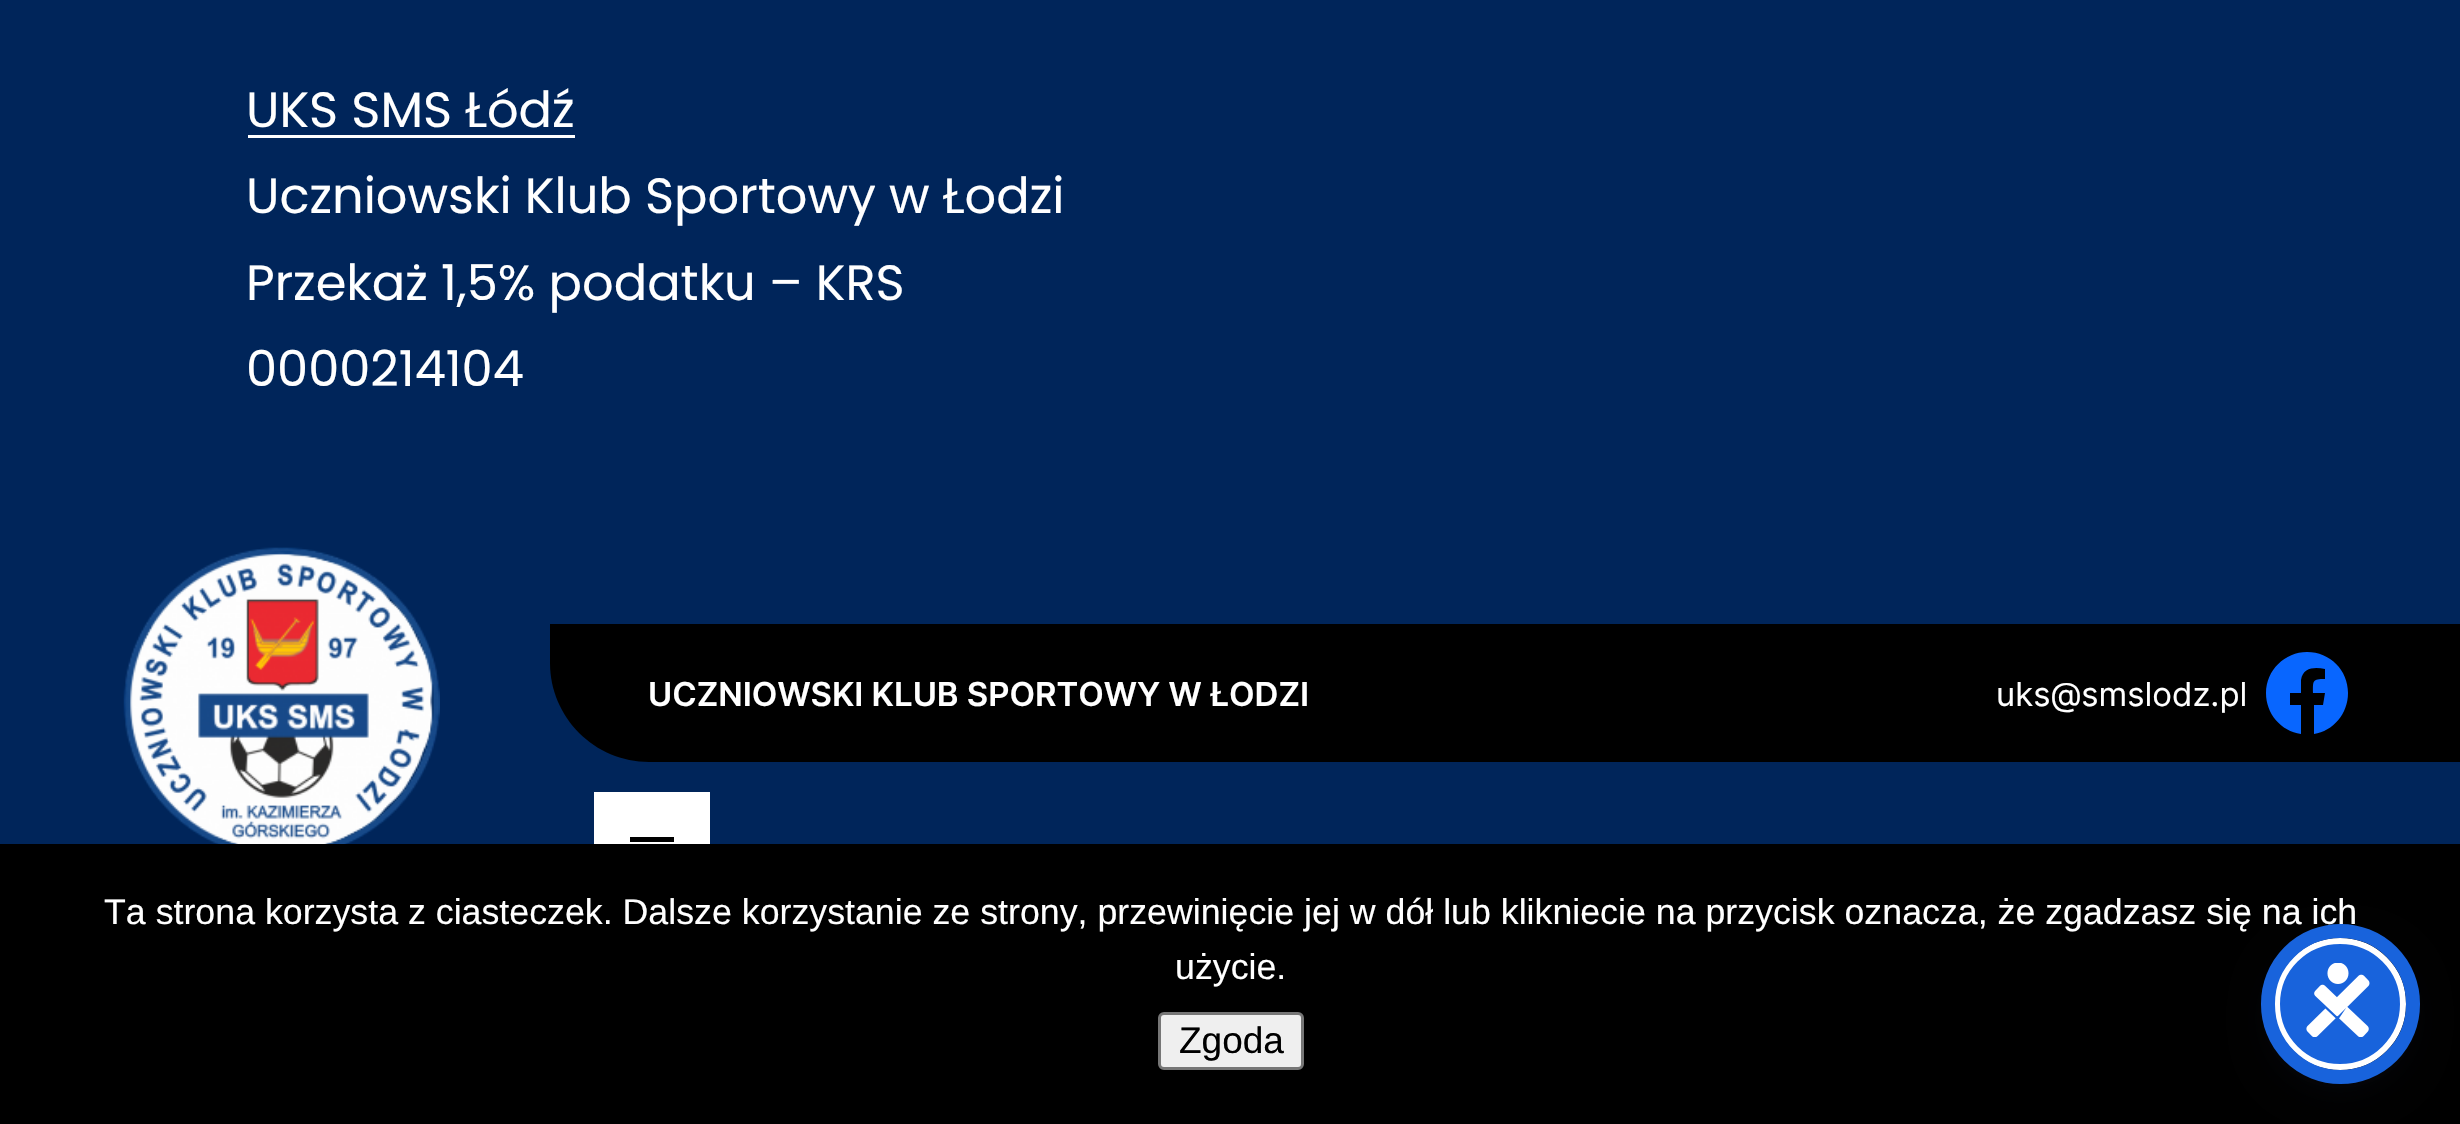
#include "include/core/SkBlurTypes.h"
#include "include/core/SkCanvas.h"
#include "include/core/SkData.h"
#include "include/core/SkFont.h"
#include "include/core/SkFontMgr.h"
#include "include/core/SkImage.h"
#include "include/core/SkMaskFilter.h"
#include "include/core/SkPaint.h"
#include "include/core/SkPathBuilder.h"
#include "include/core/SkTextBlob.h"
#include "include/effects/SkDashPathEffect.h"
#include "include/effects/SkGradientShader.h"
#include "include/utils/SkParsePath.h"

extern sk_sp<SkFontMgr> fontMgr;

void draw(SkCanvas* canvas) {
  SkPaint p;
  p.setAntiAlias(true);
  canvas->clear(SkColorSetRGB(0, 37, 90));
  p.setColor(SK_ColorWHITE);
  canvas->drawRect(SkRect::MakeLTRB(248, 135, 575, 138), p);
  canvas->drawImageRect(SkImages::DeferredFromEncodedData(SkData::MakeFromFileName("images/1.png")), SkRect::MakeLTRB(123, 547, 440, 844), SkSamplingOptions());
  p.setColor(SK_ColorBLACK);
  canvas->drawPath(SkPathBuilder().moveTo(1100, 624).lineTo(2338, 624).lineTo(2338, 762).lineTo(1192, 762).lineTo(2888, 762).lineTo(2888, 624).close().detach(), p);
  canvas->drawPath(SkPathBuilder().moveTo(550, 624).lineTo(2338, 624).lineTo(2338, 762).lineTo(649, 762).cubicTo(594.5f, 762, 550, 717.5f, 550, 663).close().detach(), p);
  p.setColor(SkColorSetRGB(8, 102, 255));
  canvas->drawPath(SkPathBuilder().moveTo(2307, 652).cubicTo(2285, 652, 2266, 670, 2266, 693).cubicTo(2266, 714, 2281, 731, 2301, 734).lineTo(2301, 705).lineTo(2290, 705).lineTo(2290, 693).lineTo(2301, 693).lineTo(2301, 680).cubicTo(2303, 667, 2315, 667, 2325, 669).lineTo(2325, 679).cubicTo(2312, 679, 2313, 681, 2313, 693).lineTo(2325, 693).lineTo(2323, 705).lineTo(2314, 705).lineTo(2314, 734).cubicTo(2333, 731, 2348, 714, 2348, 693).cubicTo(2348, 670, 2330, 652, 2307, 652).close().detach(), p);
  p.setColor(SK_ColorWHITE);
  canvas->drawRect(SkRect::MakeLTRB(594, 792, 710, 844), p);
  p.setColor(SK_ColorBLACK);
  canvas->drawRect(SkRect::MakeLTRB(630, 837, 674, 842), p);
  canvas->drawRect(SkRect::MakeLTRB(0, 844, 2460, 1124), p);
  p.setColor(SkColorSetARGB(51, 93, 100, 148));
  p.setMaskFilter(SkMaskFilter::MakeBlur(kNormal_SkBlurStyle, 5.5f));
  canvas->drawRoundRect(SkRect::MakeLTRB(2274, 943, 2406, 1075), 66, 66, p);
  p.setMaskFilter(nullptr);
  p.setColor(SkColorSetARGB(38, 37, 44, 97));
  p.setMaskFilter(SkMaskFilter::MakeBlur(kNormal_SkBlurStyle, 20.5f));
  canvas->drawRoundRect(SkRect::MakeLTRB(2274, 952, 2406, 1084), 66, 66, p);
  p.setMaskFilter(nullptr);
  p.setColor(SkColorSetRGB(24, 99, 220));
  canvas->drawCircle(2340, 1004, 63, p);
  p.setStyle(SkPaint::kStroke_Style);
  p.setStrokeWidth(6);
  p.setColor(SK_ColorWHITE);
  canvas->drawCircle(2340, 1004, 63, p);
  p.setStyle(SkPaint::kFill_Style);
  p.setColor(SkColorSetRGB(239, 239, 239));
  canvas->drawRoundRect(SkRect::MakeLTRB(1159.5f, 1013.5f, 1302.5f, 1068.5f), 4.5f, 4.5f, p);
  p.setStyle(SkPaint::kStroke_Style);
  p.setStrokeWidth(3);
  p.setColor(SkColorSetRGB(118, 118, 118));
  canvas->drawRoundRect(SkRect::MakeLTRB(1159.5f, 1013.5f, 1302.5f, 1068.5f), 4.5f, 4.5f, p);
  SkFont font1(fontMgr->matchFamilyStyle("Poppins", SkFontStyle::Normal()), 49.5f);
  font1.setSubpixel(true);
  p.setStyle(SkPaint::kFill_Style);
  p.setColor(SK_ColorWHITE);
  canvas->drawString("UKS SMS Łódź", 246, 127, font1, p);
  canvas->drawString("Uczniowski Klub Sportowy w Łodzi", 246, 213, font1, p);
  canvas->drawString("Przekaż 1,5% podatku – KRS", 246, 300, font1, p);
  canvas->drawString("0000214104", 246, 386, font1, p);
  SkFont font2(fontMgr->matchFamilyStyle("Inter", SkFontStyle(600, SkFontStyle::kNormal_Width, SkFontStyle::kUpright_Slant)), 33);
  font2.setSubpixel(true);
  canvas->drawString("UCZNIOWSKI KLUB SPORTOWY W ŁODZI", 648, 706, font2, p);
  SkFont font3(fontMgr->matchFamilyStyle("Inter", SkFontStyle::Normal()), 33);
  font3.setSubpixel(true);
  canvas->drawString("uks@smslodz.pl", 1996, 706, font3, p);
  SkFont font4(fontMgr->matchFamilyStyle("Liberation Sans", SkFontStyle::Normal()), 35.75f);
  font4.setSubpixel(true);
  canvas->drawString("Ta strona korzysta z ciasteczek. Dalsze korzystanie ze strony, przewinięcie jej w dół lub klikniecie na przycisk oznacza, że zgadzasz się na ich", 104, 924, font4, p);
  p.setStyle(SkPaint::kStroke_Style);
  p.setStrokeWidth(14);
  p.setColor(SkColorSetRGB(24, 99, 220));
  canvas->drawRoundRect(SkRect::MakeLTRB(2268, 931, 2413, 1077), 72.5f, 72.5f, p);
  canvas->drawImageRect(SkImages::DeferredFromEncodedData(SkData::MakeFromFileName("images/2.png")), SkRect::MakeLTRB(2306, 963, 2370, 1037), SkSamplingOptions());
  p.setStyle(SkPaint::kFill_Style);
  p.setColor(SK_ColorWHITE);
  canvas->drawString("użycie.", 1175, 979, font4, p);
  SkFont font5(fontMgr->matchFamilyStyle("Liberation Sans", SkFontStyle::Normal()), 37);
  font5.setSubpixel(true);
  p.setColor(SK_ColorBLACK);
  canvas->drawString("Zgoda", 1179, 1053, font5, p);
}
